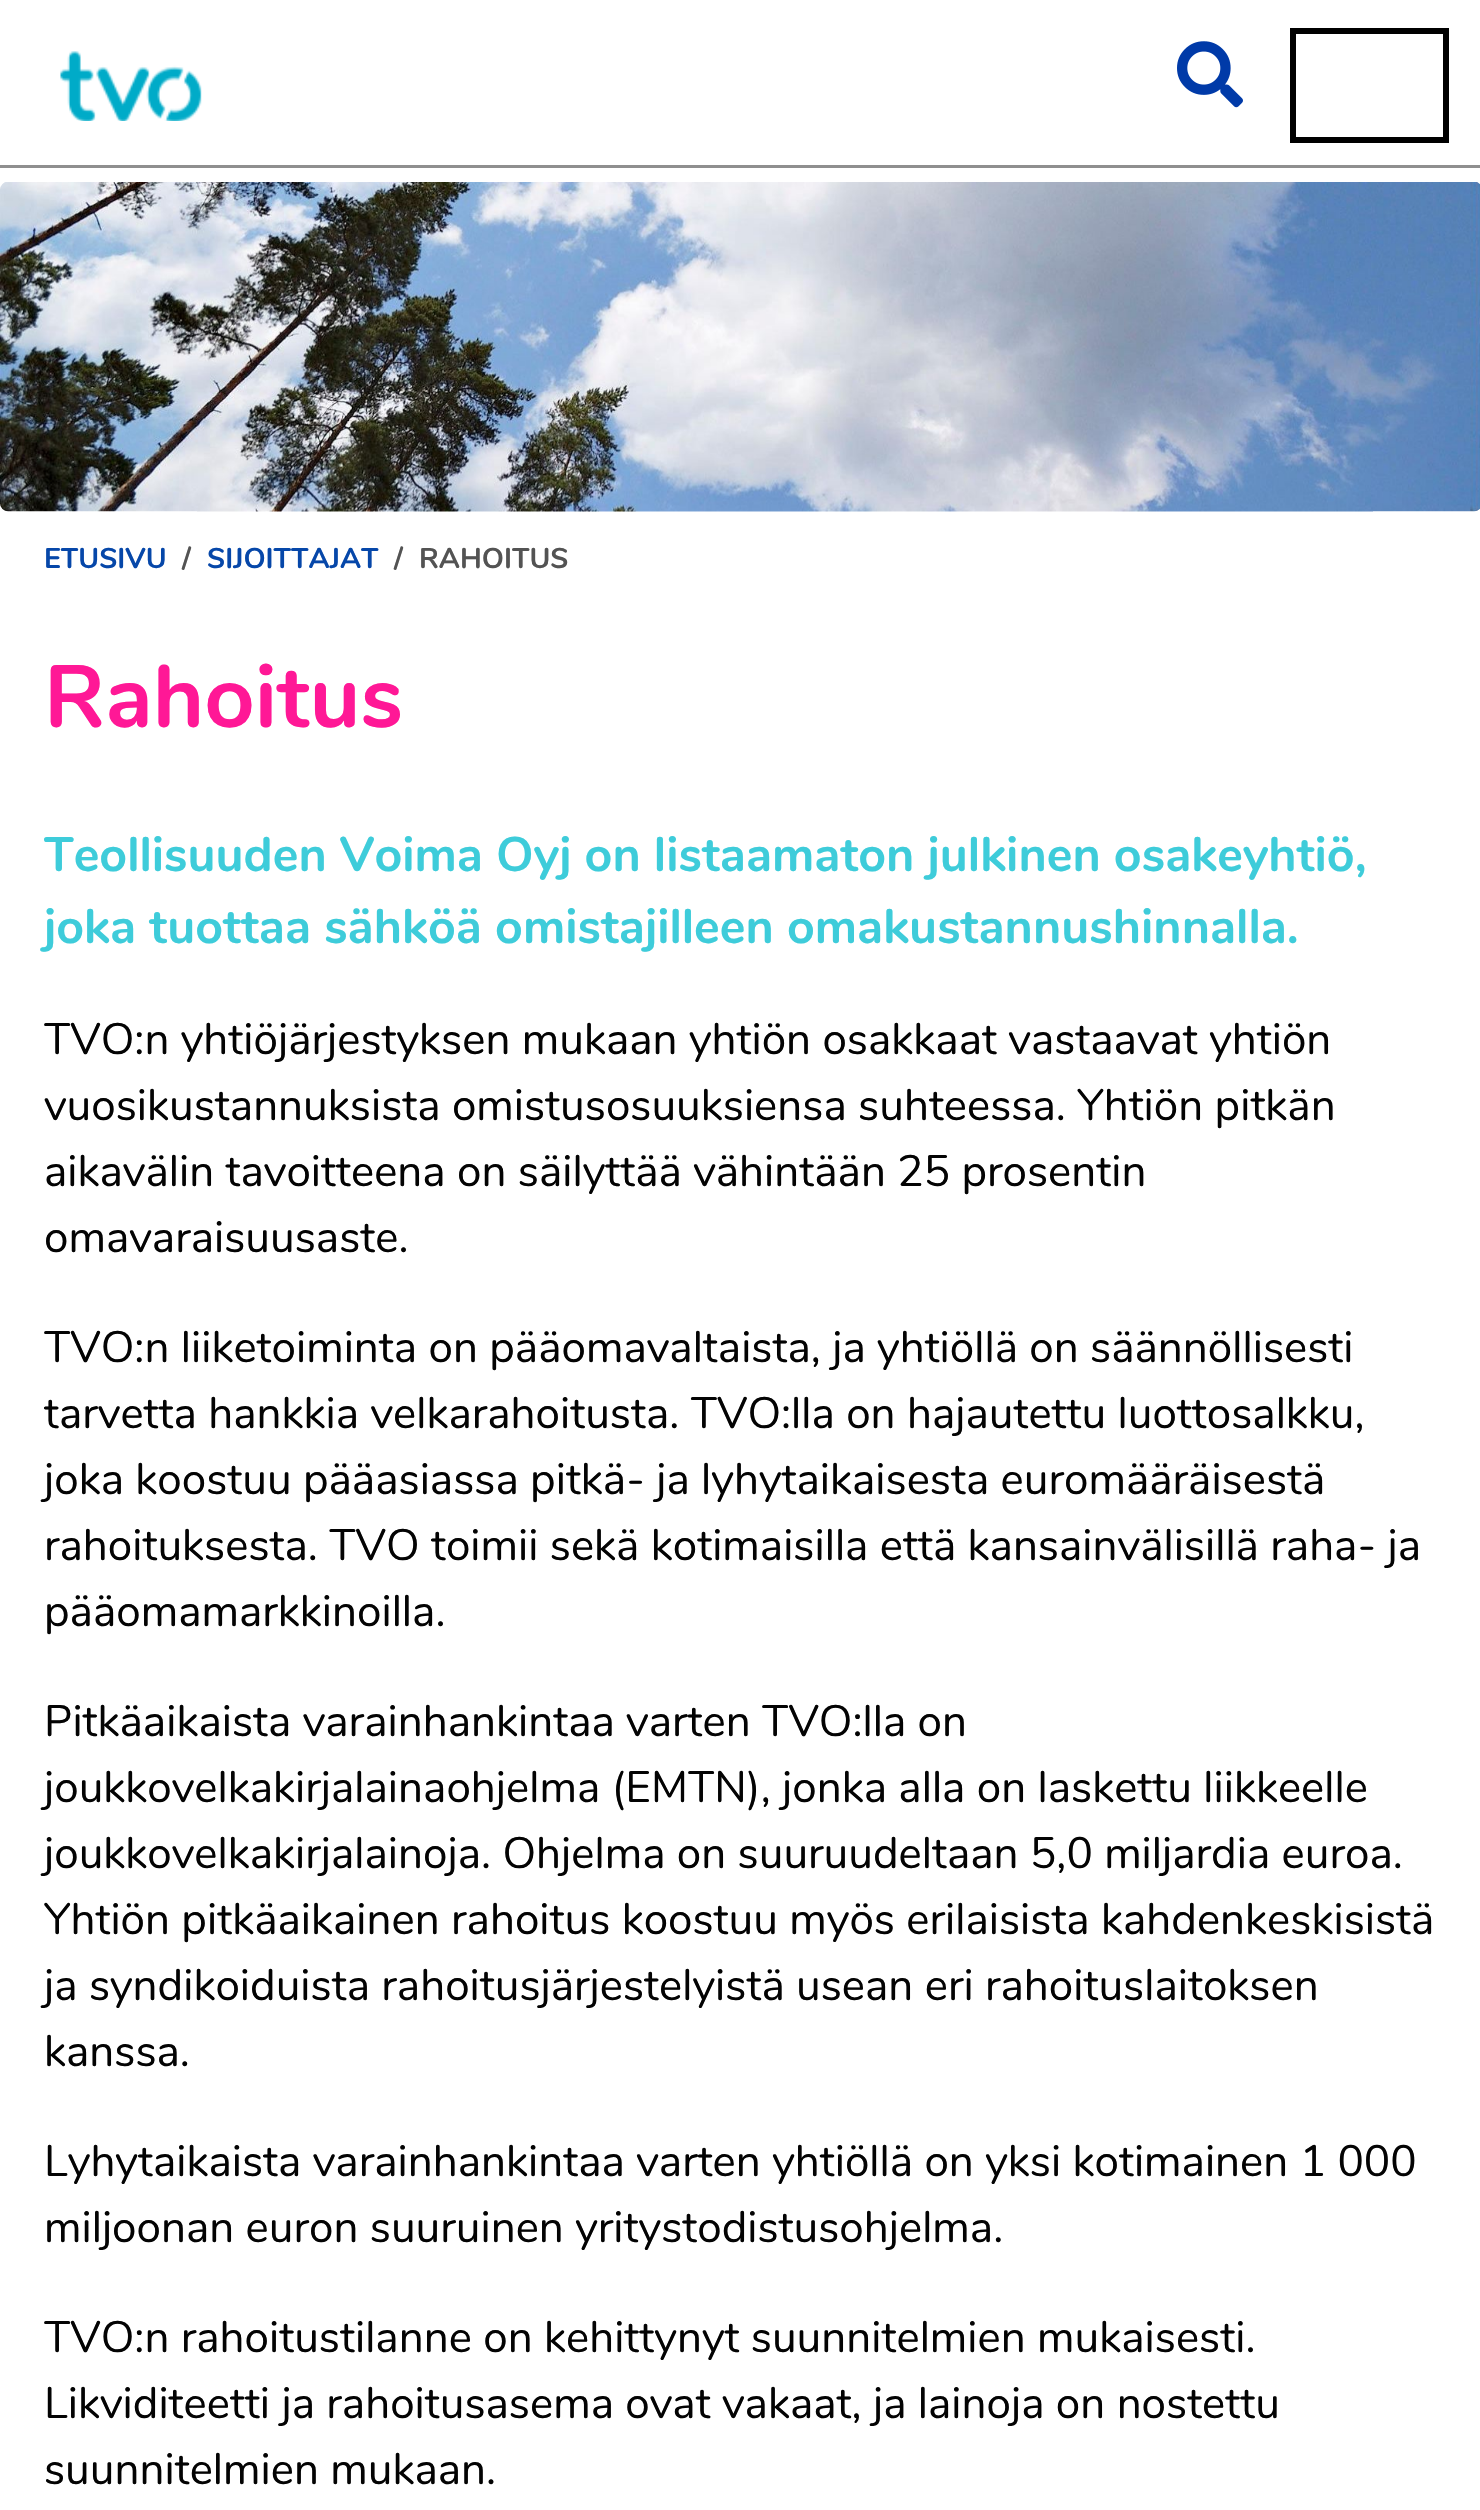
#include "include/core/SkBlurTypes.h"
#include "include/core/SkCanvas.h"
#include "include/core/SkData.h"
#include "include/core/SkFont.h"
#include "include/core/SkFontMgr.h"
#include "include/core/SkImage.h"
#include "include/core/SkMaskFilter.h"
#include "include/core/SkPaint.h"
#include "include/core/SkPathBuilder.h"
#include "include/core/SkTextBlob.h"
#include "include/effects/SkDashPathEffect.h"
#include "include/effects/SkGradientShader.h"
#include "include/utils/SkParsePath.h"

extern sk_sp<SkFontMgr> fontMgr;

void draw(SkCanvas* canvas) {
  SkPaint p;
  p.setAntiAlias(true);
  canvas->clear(SK_ColorWHITE);
  p.setColor(SkColorSetRGB(143, 143, 143));
  canvas->drawRect(SkRect::MakeLTRB(0, 165, 1480, 168), p);
  canvas->drawImageRect(SkImages::DeferredFromEncodedData(SkData::MakeFromFileName("images/1.png")), SkRect::MakeLTRB(60, 51, 202, 121), SkSamplingOptions());
  canvas->drawImageRect(SkImages::DeferredFromEncodedData(SkData::MakeFromFileName("images/2.png")), SkRect::MakeLTRB(1177, 41, 1243, 108), SkSamplingOptions());
  p.setStyle(SkPaint::kStroke_Style);
  p.setStrokeWidth(6);
  p.setColor(SK_ColorBLACK);
  canvas->drawRect(SkRect::MakeLTRB(1293, 31, 1446, 140), p);
  canvas->drawImageRect(SkImages::DeferredFromEncodedData(SkData::MakeFromFileName("images/3.png")), SkRect::MakeLTRB(0, 182, 1480, 512), SkSamplingOptions());
  SkFont font1(fontMgr->matchFamilyStyle("Nunito", SkFontStyle::Bold()), 28.5f);
  font1.setSubpixel(true);
  p.setStyle(SkPaint::kFill_Style);
  p.setColor(SkColorSetRGB(6, 71, 169));
  canvas->drawString("ETUSIVU", 44, 568, font1, p);
  p.setColor(SkColorSetRGB(83, 83, 83));
  canvas->drawString("/", 182, 568, font1, p);
  p.setColor(SkColorSetRGB(6, 71, 169));
  canvas->drawString("SIJOITTAJAT", 207, 568, font1, p);
  p.setColor(SkColorSetRGB(83, 83, 83));
  canvas->drawString("/", 394, 568, font1, p);
  canvas->drawString("RAHOITUS", 419, 568, font1, p);
  SkFont font2(fontMgr->matchFamilyStyle("Nunito", SkFontStyle::Bold()), 88);
  font2.setSubpixel(true);
  p.setColor(SkColorSetRGB(255, 24, 150));
  canvas->drawString("Rahoitus", 44, 727, font2, p);
  SkFont font3(fontMgr->matchFamilyStyle("Nunito", SkFontStyle::Bold()), 48.4f);
  font3.setSubpixel(true);
  p.setColor(SkColorSetRGB(62, 204, 218));
  canvas->drawString("Teollisuuden Voima Oyj on listaamaton julkinen osakeyhtiö,", 44, 871, font3, p);
  canvas->drawString("joka tuottaa sähköä omistajilleen omakustannushinnalla.", 44, 943, font3, p);
  SkFont font4(fontMgr->matchFamilyStyle("Nunito", SkFontStyle::Normal()), 44);
  font4.setSubpixel(true);
  p.setColor(SkColorSetRGB(3, 3, 3));
  canvas->drawString("TVO:n yhtiöjärjestyksen mukaan yhtiön osakkaat vastaavat yhtiön", 44, 1054, font4, p);
  canvas->drawString("vuosikustannuksista omistusosuuksiensa suhteessa. Yhtiön pitkän", 44, 1120, font4, p);
  canvas->drawString("aikavälin tavoitteena on säilyttää vähintään 25 prosentin", 44, 1186, font4, p);
  canvas->drawString("omavaraisuusaste.", 44, 1252, font4, p);
  canvas->drawString("TVO:n liiketoiminta on pääomavaltaista, ja yhtiöllä on säännöllisesti", 44, 1362, font4, p);
  canvas->drawString("tarvetta hankkia velkarahoitusta. TVO:lla on hajautettu luottosalkku,", 44, 1428, font4, p);
  canvas->drawString("joka koostuu pääasiassa pitkä- ja lyhytaikaisesta euromääräisestä", 44, 1494, font4, p);
  canvas->drawString("rahoituksesta. TVO toimii sekä kotimaisilla että kansainvälisillä raha- ja", 44, 1560, font4, p);
  canvas->drawString("pääomamarkkinoilla.", 44, 1626, font4, p);
  canvas->drawString("Pitkäaikaista varainhankintaa varten TVO:lla on", 44, 1736, font4, p);
  canvas->drawString("joukkovelkakirjalainaohjelma (EMTN), jonka alla on laskettu liikkeelle", 44, 1802, font4, p);
  canvas->drawString("joukkovelkakirjalainoja. Ohjelma on suuruudeltaan 5,0 miljardia euroa.", 44, 1868, font4, p);
  canvas->drawString("Yhtiön pitkäaikainen rahoitus koostuu myös erilaisista kahdenkeskisistä", 44, 1934, font4, p);
  canvas->drawString("ja syndikoiduista rahoitusjärjestelyistä usean eri rahoituslaitoksen", 44, 2000, font4, p);
  canvas->drawString("kanssa.", 44, 2066, font4, p);
  canvas->drawString("Lyhytaikaista varainhankintaa varten yhtiöllä on yksi kotimainen 1 000", 44, 2176, font4, p);
  canvas->drawString("miljoonan euron suuruinen yritystodistusohjelma.", 44, 2242, font4, p);
  canvas->drawString("TVO:n rahoitustilanne on kehittynyt suunnitelmien mukaisesti.", 44, 2352, font4, p);
  canvas->drawString("Likviditeetti ja rahoitusasema ovat vakaat, ja lainoja on nostettu", 44, 2418, font4, p);
  canvas->drawString("suunnitelmien mukaan.", 44, 2484, font4, p);
}
